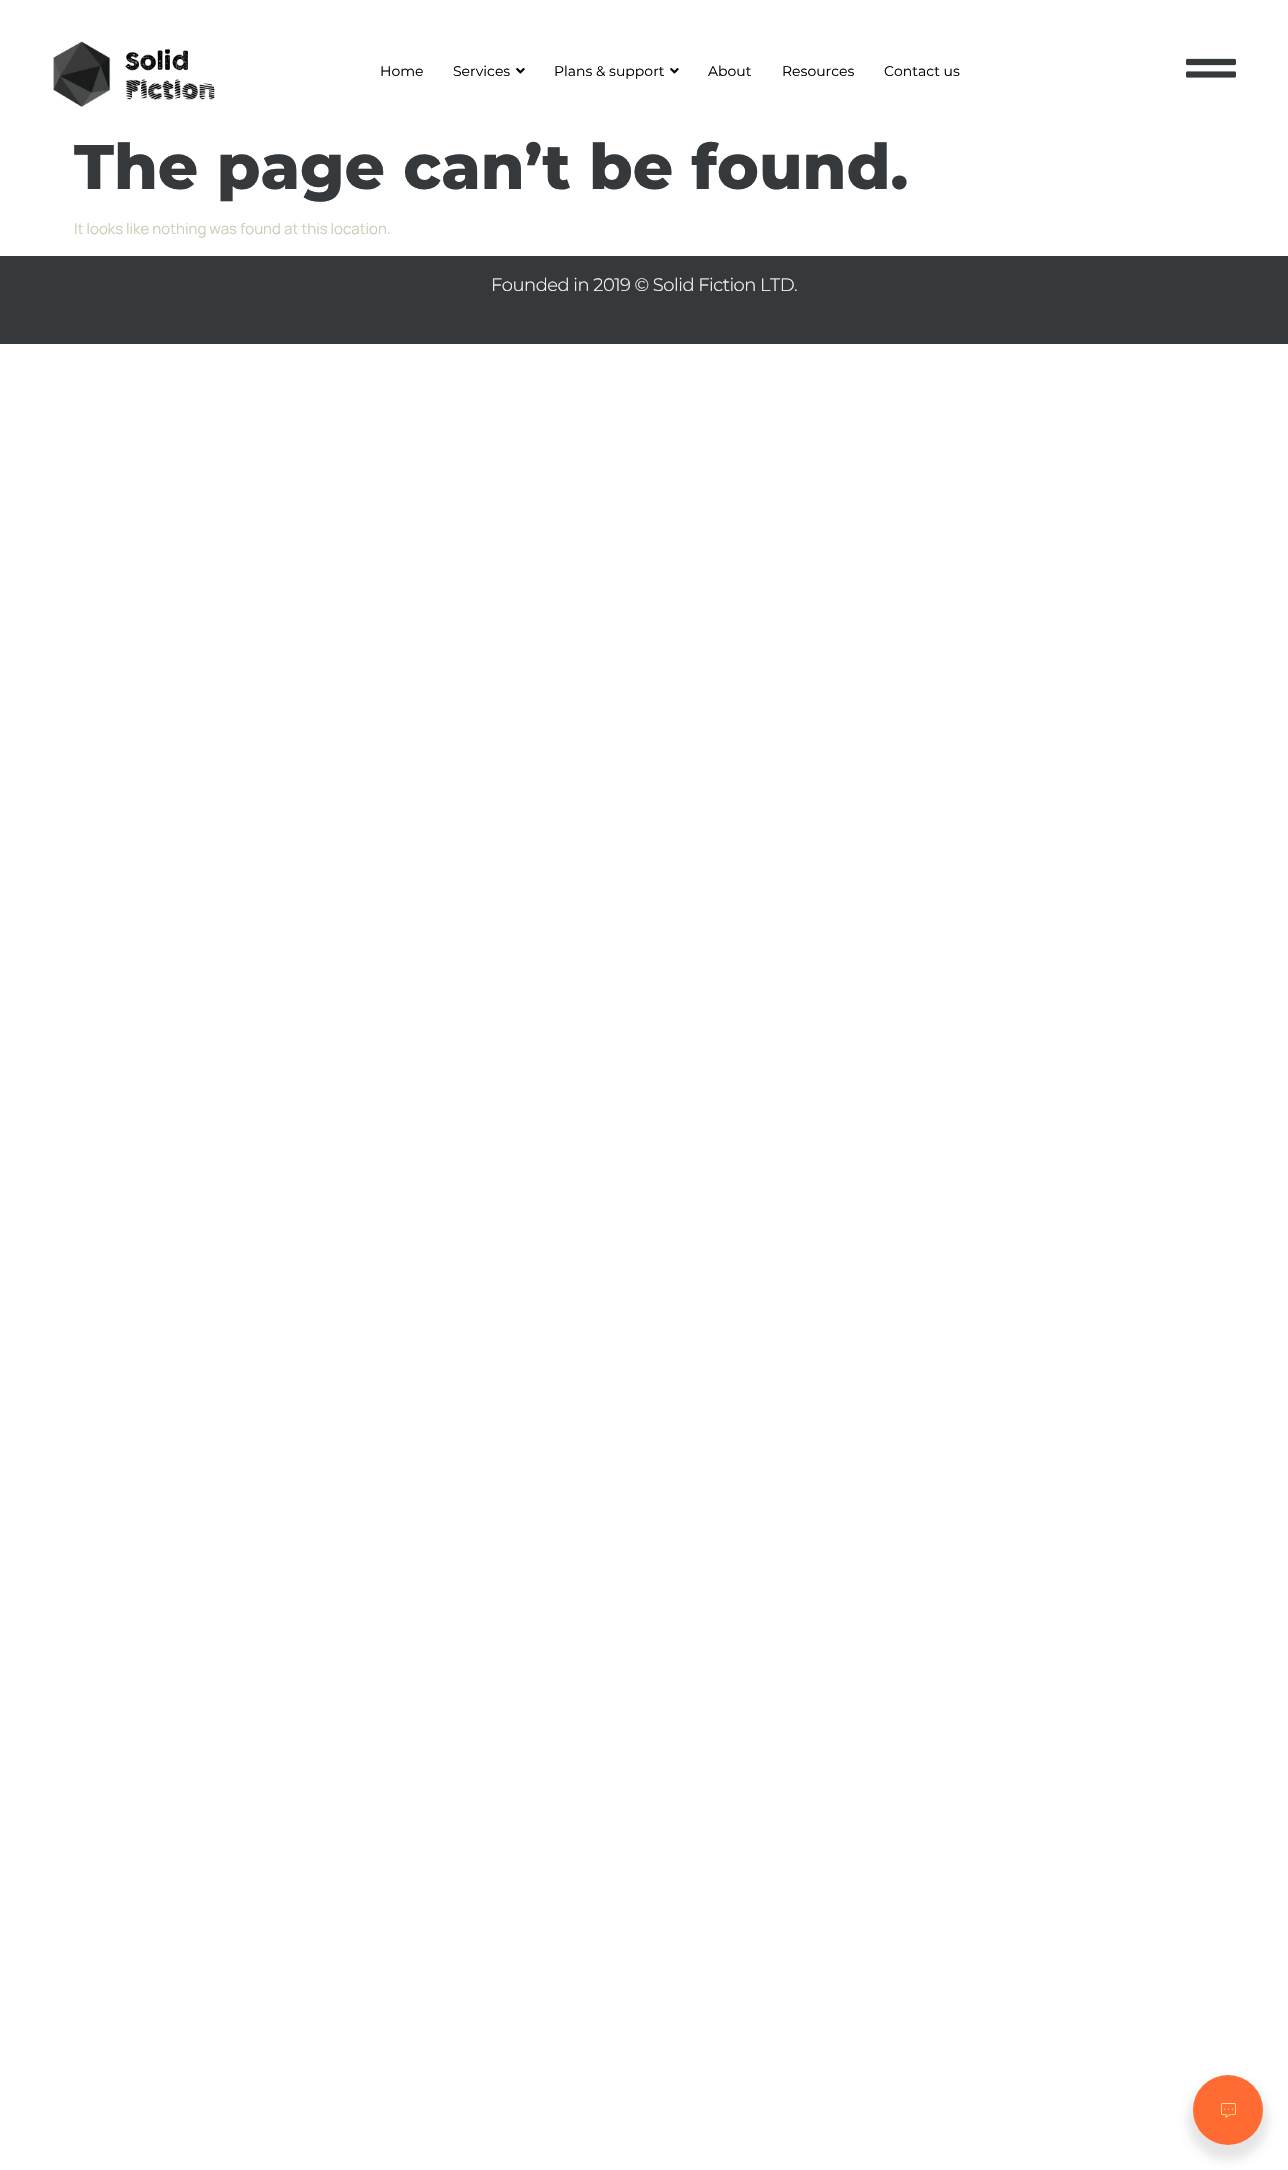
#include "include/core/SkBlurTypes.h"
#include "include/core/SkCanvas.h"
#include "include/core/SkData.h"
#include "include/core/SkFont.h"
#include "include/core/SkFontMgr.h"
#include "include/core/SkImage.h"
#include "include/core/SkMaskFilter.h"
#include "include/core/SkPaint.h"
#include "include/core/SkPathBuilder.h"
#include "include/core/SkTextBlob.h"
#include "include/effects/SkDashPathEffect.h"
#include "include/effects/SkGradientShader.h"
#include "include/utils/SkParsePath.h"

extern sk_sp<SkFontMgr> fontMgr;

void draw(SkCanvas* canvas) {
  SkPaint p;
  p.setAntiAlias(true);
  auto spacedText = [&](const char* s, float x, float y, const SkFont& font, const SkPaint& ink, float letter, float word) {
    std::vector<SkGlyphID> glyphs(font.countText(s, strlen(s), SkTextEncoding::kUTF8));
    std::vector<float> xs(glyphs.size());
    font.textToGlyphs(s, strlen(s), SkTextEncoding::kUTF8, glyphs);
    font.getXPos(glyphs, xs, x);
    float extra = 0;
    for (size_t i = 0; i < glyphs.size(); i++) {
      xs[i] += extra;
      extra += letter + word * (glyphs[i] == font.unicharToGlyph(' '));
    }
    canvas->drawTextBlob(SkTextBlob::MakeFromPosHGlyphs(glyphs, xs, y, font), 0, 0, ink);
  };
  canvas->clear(SK_ColorWHITE);
  canvas->drawImageRect(SkImages::DeferredFromEncodedData(SkData::MakeFromFileName("images/1.png")), SkRect::MakeLTRB(53, 41, 215, 107), SkSamplingOptions());
  canvas->drawImageRect(SkImages::DeferredFromEncodedData(SkData::MakeFromFileName("images/2.png")), SkRect::MakeLTRB(516, 68, 525, 74), SkSamplingOptions());
  canvas->drawImageRect(SkImages::DeferredFromEncodedData(SkData::MakeFromFileName("images/2.png")), SkRect::MakeLTRB(670, 68, 679, 74), SkSamplingOptions());
  canvas->drawImageRect(SkImages::DeferredFromEncodedData(SkData::MakeFromFileName("images/3.png")), SkRect::MakeLTRB(1186, 58, 1236, 78), SkSamplingOptions());
  p.setColor(SkColorSetRGB(53, 57, 60));
  canvas->drawRect(SkRect::MakeLTRB(0, 256, 1288, 344), p);
  p.setColor(SkColorSetARGB(26, 0, 0, 0));
  p.setMaskFilter(SkMaskFilter::MakeBlur(kNormal_SkBlurStyle, 5));
  canvas->drawRoundRect(SkRect::MakeLTRB(1188, 2080, 1268, 2160), 40, 40, p);
  p.setMaskFilter(nullptr);
  p.setColor(SkColorSetRGB(255, 107, 50));
  canvas->drawCircle(1228, 2110, 35, p);
  canvas->drawImageRect(SkImages::DeferredFromEncodedData(SkData::MakeFromFileName("images/4.png")), SkRect::MakeLTRB(1221, 2103, 1236, 2118), SkSamplingOptions());
  SkFont font1(fontMgr->matchFamilyStyle("Montserrat", SkFontStyle::Normal()), 14);
  font1.setSubpixel(true);
  p.setColor(SK_ColorBLACK);
  canvas->drawString("Home", 380, 76, font1, p);
  canvas->drawString("Services", 453, 76, font1, p);
  canvas->drawString("Plans & support", 554, 76, font1, p);
  canvas->drawString("About", 708, 76, font1, p);
  canvas->drawString("Resources", 782, 76, font1, p);
  canvas->drawString("Contact us", 884, 76, font1, p);
  SkFont font2(fontMgr->matchFamilyStyle("Montserrat", SkFontStyle(800, SkFontStyle::kNormal_Width, SkFontStyle::kUpright_Slant)), 63);
  font2.setSubpixel(true);
  p.setColor(SkColorSetRGB(53, 57, 60));
  canvas->drawString("The page can’t be found.", 74, 189, font2, p);
  SkFont font3(fontMgr->matchFamilyStyle("Manrope", SkFontStyle::Normal()), 15);
  font3.setSubpixel(true);
  p.setColor(SkColorSetRGB(203, 208, 185));
  canvas->drawString("It looks like nothing was found at this location.", 74, 234, font3, p);
  SkFont font4(fontMgr->matchFamilyStyle("Montserrat", SkFontStyle(300, SkFontStyle::kNormal_Width, SkFontStyle::kUpright_Slant)), 18);
  font4.setSubpixel(true);
  p.setColor(SK_ColorWHITE);
  spacedText("Founded in 2019 © Solid Fiction LTD.", 491, 291, font4, p, -0.5f, 0);
}
